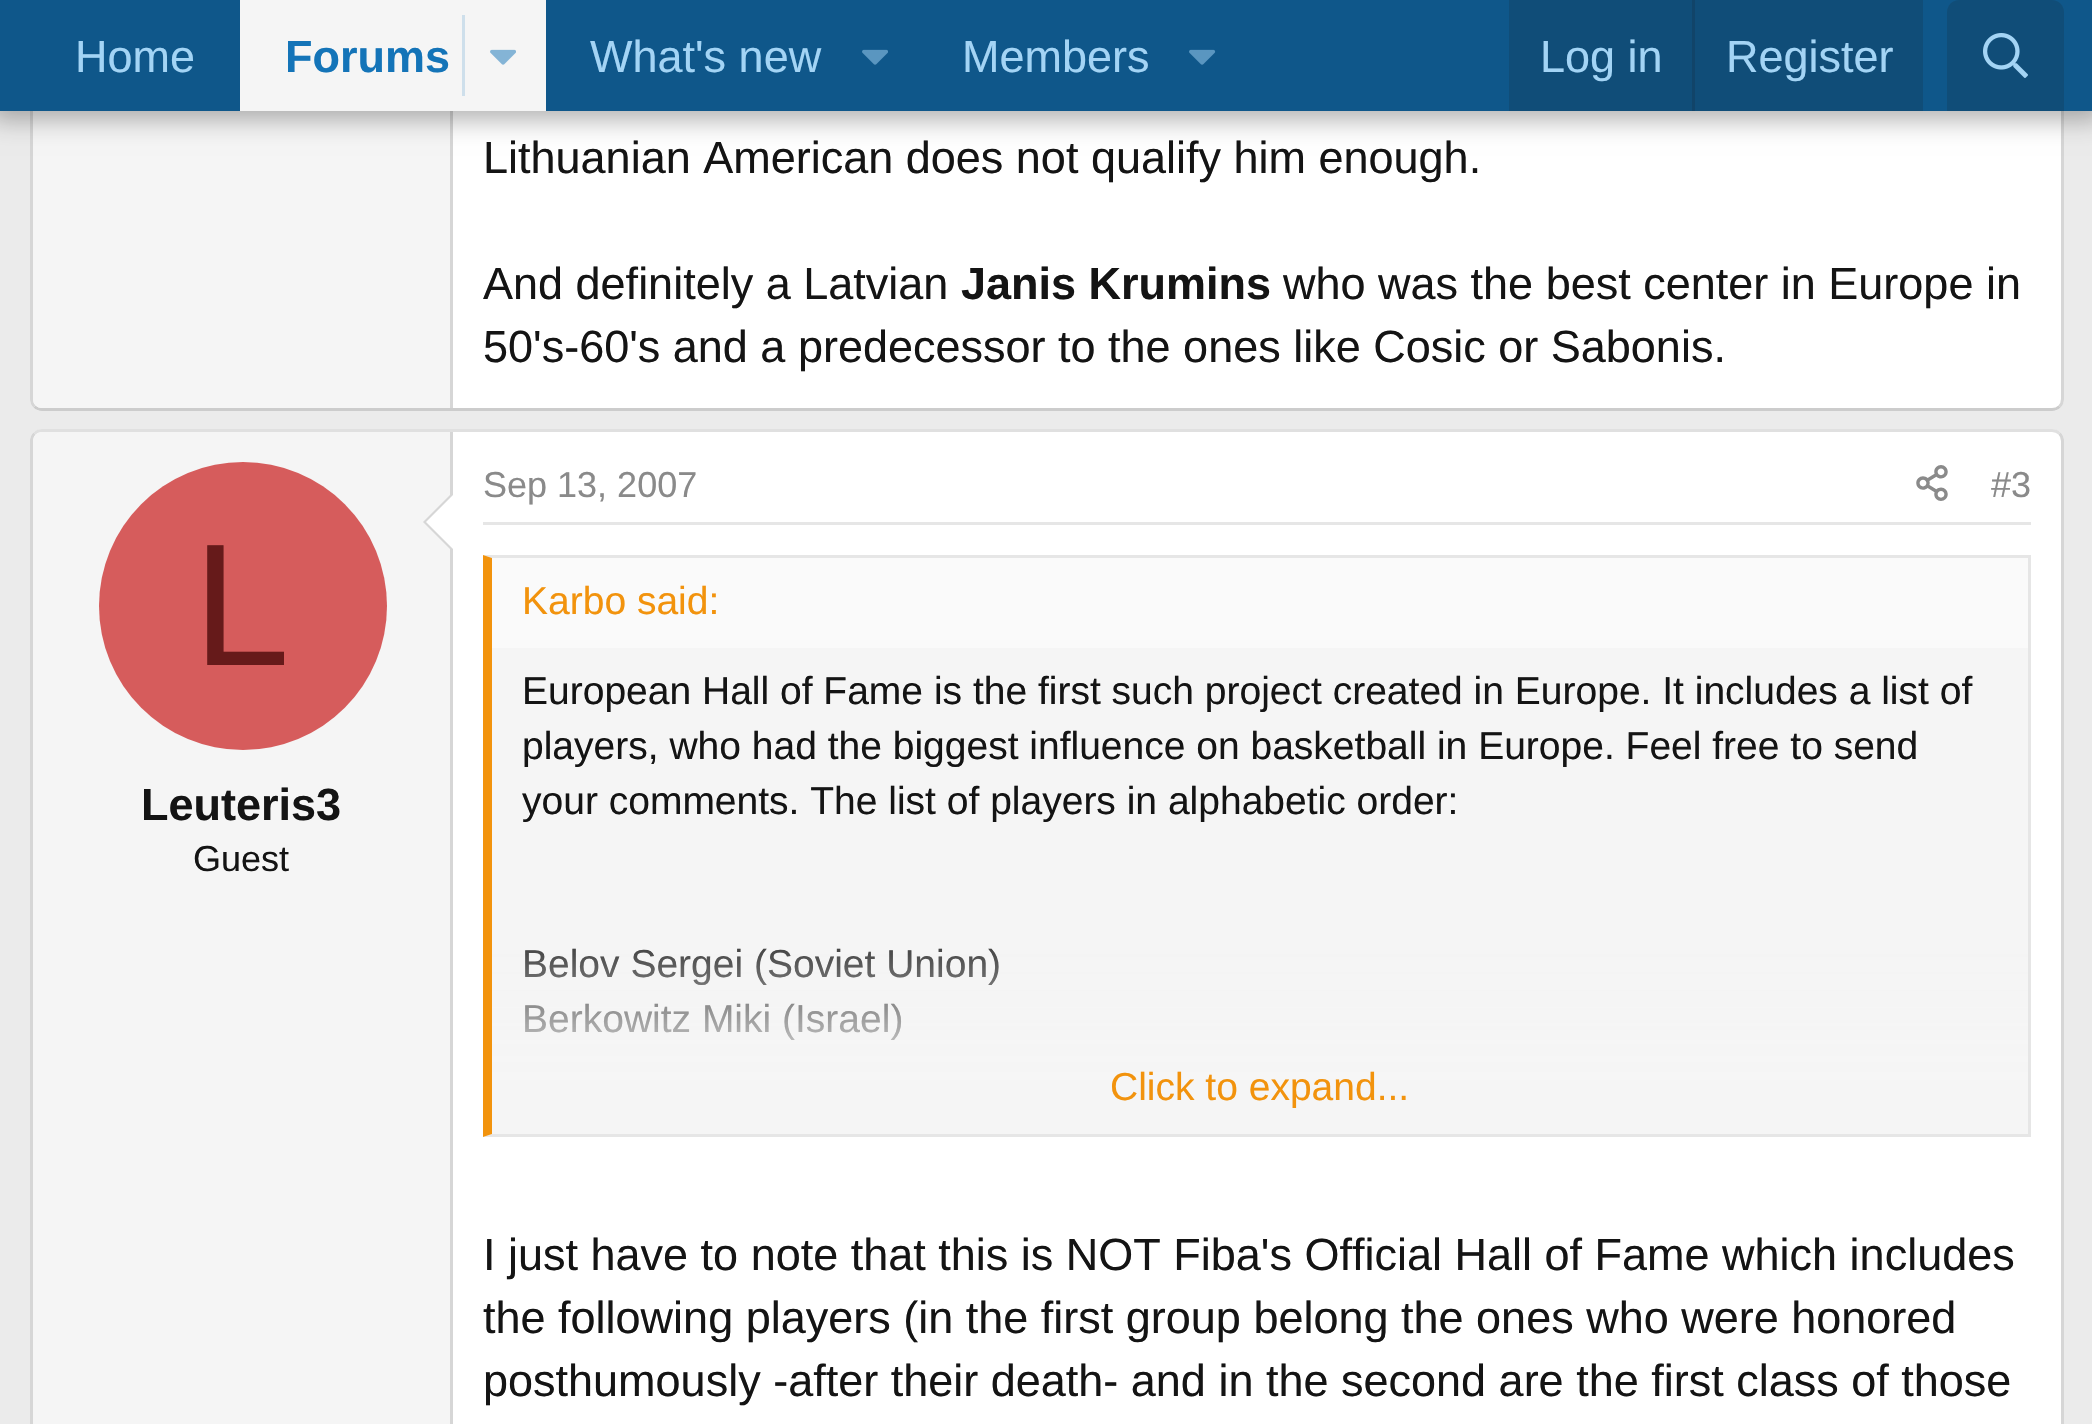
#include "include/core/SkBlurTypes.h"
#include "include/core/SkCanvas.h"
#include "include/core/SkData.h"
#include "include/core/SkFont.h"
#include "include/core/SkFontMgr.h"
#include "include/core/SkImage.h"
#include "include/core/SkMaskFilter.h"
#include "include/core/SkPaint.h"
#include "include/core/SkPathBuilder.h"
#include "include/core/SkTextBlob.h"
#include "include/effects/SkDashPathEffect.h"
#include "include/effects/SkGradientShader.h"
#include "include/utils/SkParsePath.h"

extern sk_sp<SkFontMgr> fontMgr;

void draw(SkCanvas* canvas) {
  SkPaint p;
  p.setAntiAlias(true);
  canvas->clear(SkColorSetRGB(235, 235, 235));
  p.setColor(SK_ColorWHITE);
  canvas->drawRoundRect(SkRect::MakeLTRB(30, -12, 2064, 411), 12, 12, p);
  p.setStyle(SkPaint::kStroke_Style);
  p.setStrokeWidth(3);
  p.setColor(SkColorSetRGB(214, 214, 214));
  canvas->drawPath(SkPathBuilder().moveTo(2059.5f, -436.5f).cubicTo(2061.5f, -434.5f, 2062.5f, -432, 2062.5f, -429).lineTo(2062.5f, 399).cubicTo(2062.5f, 402, 2061.5f, 404.5f, 2059.5f, 406.5f).detach(), p);
  p.setColor(SkColorSetRGB(204, 204, 204));
  canvas->drawPath(SkPathBuilder().moveTo(2059.5f, 406.5f).cubicTo(2057.5f, 408.5f, 2055, 409.5f, 2052, 409.5f).lineTo(42, 409.5f).cubicTo(39, 409.5f, 36.5f, 408.5f, 34.5f, 406.5f).detach(), p);
  p.setColor(SkColorSetRGB(214, 214, 214));
  canvas->drawPath(SkPathBuilder().moveTo(34.5f, 406.5f).cubicTo(32.5f, 404.5f, 31.5f, 402, 31.5f, 399).lineTo(31.5f, -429).cubicTo(31.5f, -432, 32.5f, -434.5f, 34.5f, -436.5f).detach(), p);
  p.setStyle(SkPaint::kFill_Style);
  p.setColor(SkColorSetRGB(245, 245, 245));
  canvas->drawPath(SkPathBuilder().moveTo(42, -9).lineTo(453, -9).lineTo(453, 408).lineTo(42, 408).cubicTo(37, 408, 33, 404, 33, 399).lineTo(33, 0).cubicTo(33, -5, 37, -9, 42, -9).close().detach(), p);
  p.setColor(SkColorSetRGB(214, 214, 214));
  canvas->drawRect(SkRect::MakeLTRB(450, 111, 453, 408), p);
  p.setColor(SkColorSetARGB(77, 0, 0, 0));
  p.setMaskFilter(SkMaskFilter::MakeBlur(kNormal_SkBlurStyle, 12));
  canvas->drawRect(SkRect::MakeLTRB(-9, -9, 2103, 120), p);
  p.setMaskFilter(nullptr);
  p.setColor(SkColorSetRGB(15, 87, 138));
  canvas->drawRect(SkRect::MakeLTRB(0, 0, 2092, 111), p);
  p.setColor(SkColorSetRGB(245, 245, 245));
  canvas->drawRect(SkRect::MakeLTRB(240, 0, 546, 111), p);
  p.setColor(SkColorSetRGB(206, 223, 235));
  canvas->drawRect(SkRect::MakeLTRB(462, 15, 465, 96), p);
  canvas->drawImageRect(SkImages::DeferredFromEncodedData(SkData::MakeFromFileName("images/1.png")), SkRect::MakeLTRB(490, 49, 516, 65), SkSamplingOptions());
  canvas->drawImageRect(SkImages::DeferredFromEncodedData(SkData::MakeFromFileName("images/2.png")), SkRect::MakeLTRB(862, 49, 888, 65), SkSamplingOptions());
  canvas->drawImageRect(SkImages::DeferredFromEncodedData(SkData::MakeFromFileName("images/3.png")), SkRect::MakeLTRB(1189, 49, 1216, 65), SkSamplingOptions());
  p.setColor(SkColorSetRGB(16, 77, 120));
  canvas->drawRect(SkRect::MakeLTRB(1509, 0, 1923, 111), p);
  p.setColor(SkColorSetRGB(17, 68, 105));
  canvas->drawRect(SkRect::MakeLTRB(1692, 0, 1695, 111), p);
  p.setColor(SkColorSetRGB(16, 77, 120));
  canvas->drawPath(SkPathBuilder().moveTo(1959, 0).lineTo(2052, 0).cubicTo(2058.5f, 0, 2064, 5.5f, 2064, 12).lineTo(2064, 111).lineTo(1947, 111).lineTo(1947, 12).cubicTo(1947, 5.5f, 1952.5f, 0, 1959, 0).close().detach(), p);
  canvas->drawImageRect(SkImages::DeferredFromEncodedData(SkData::MakeFromFileName("images/4.png")), SkRect::MakeLTRB(1983, 33, 2028, 78), SkSamplingOptions());
  p.setColor(SK_ColorWHITE);
  canvas->drawRoundRect(SkRect::MakeLTRB(30, 429, 2064, 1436), 12, 12, p);
  p.setStyle(SkPaint::kStroke_Style);
  p.setColor(SkColorSetRGB(224, 224, 224));
  canvas->drawPath(SkPathBuilder().moveTo(34.5f, 433.5f).cubicTo(36.5f, 431.5f, 39, 430.5f, 42, 430.5f).lineTo(2052, 430.5f).cubicTo(2055, 430.5f, 2057.5f, 431.5f, 2059.5f, 433.5f).detach(), p);
  p.setColor(SkColorSetRGB(214, 214, 214));
  canvas->drawPath(SkPathBuilder().moveTo(2059.5f, 433.5f).cubicTo(2061.5f, 435.5f, 2062.5f, 438, 2062.5f, 441).lineTo(2062.5f, 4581).cubicTo(2062.5f, 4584, 2061.5f, 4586.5f, 2059.5f, 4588.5f).detach(), p);
  canvas->drawPath(SkPathBuilder().moveTo(34.5f, 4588.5f).cubicTo(32.5f, 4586.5f, 31.5f, 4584, 31.5f, 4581).lineTo(31.5f, 441).cubicTo(31.5f, 438, 32.5f, 435.5f, 34.5f, 433.5f).detach(), p);
  p.setStyle(SkPaint::kFill_Style);
  p.setColor(SkColorSetRGB(245, 245, 245));
  canvas->drawPath(SkPathBuilder().moveTo(42, 432).lineTo(453, 432).lineTo(453, 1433).lineTo(42, 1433).cubicTo(37, 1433, 33, 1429, 33, 1424).lineTo(33, 441).cubicTo(33, 436, 37, 432, 42, 432).close().detach(), p);
  p.setColor(SkColorSetRGB(214, 214, 214));
  canvas->drawRect(SkRect::MakeLTRB(450, 432, 453, 1424), p);
  canvas->drawPath(SkPathBuilder().moveTo(453, 492).lineTo(453, 552).lineTo(423, 522).close().detach(), p);
  p.setColor(SK_ColorWHITE);
  canvas->drawPath(SkPathBuilder().moveTo(453, 495).lineTo(453, 549).lineTo(426, 522).close().detach(), p);
  p.setColor(SkColorSetRGB(214, 92, 92));
  canvas->drawCircle(243, 606, 144, p);
  p.setColor(SkColorSetRGB(230, 230, 230));
  canvas->drawRect(SkRect::MakeLTRB(483, 522, 2031, 525), p);
  canvas->drawImageRect(SkImages::DeferredFromEncodedData(SkData::MakeFromFileName("images/5.png")), SkRect::MakeLTRB(1916, 465, 1948, 501), SkSamplingOptions());
  p.setColor(SkColorSetRGB(245, 245, 245));
  canvas->drawRect(SkRect::MakeLTRB(492, 648, 2028, 1088), p);
  p.setColor(SkColorSetRGB(230, 230, 230));
  canvas->drawPath(SkPathBuilder().moveTo(483, 555).lineTo(2031, 555).lineTo(2028, 558).lineTo(492, 558).close().detach(), p);
  canvas->drawRect(SkRect::MakeLTRB(2028, 555, 2031, 1137), p);
  canvas->drawPath(SkPathBuilder().moveTo(2031, 1137).lineTo(483, 1137).lineTo(492, 1134).lineTo(2028, 1134).close().detach(), p);
  p.setColor(SkColorSetRGB(242, 147, 13));
  canvas->drawPath(SkPathBuilder().moveTo(483, 1137).lineTo(483, 555).lineTo(492, 558).lineTo(492, 1134).close().detach(), p);
  p.setColor(SkColorSetRGB(250, 250, 250));
  canvas->drawRect(SkRect::MakeLTRB(492, 558, 2028, 648), p);
  SkFont font1(fontMgr->matchFamilyStyle("Liberation Sans", SkFontStyle::Normal()), 45);
  font1.setSubpixel(true);
  p.setColor(SkColorSetRGB(163, 212, 245));
  canvas->drawString("Home", 75, 72, font1, p);
  SkFont font2(fontMgr->matchFamilyStyle("Liberation Sans", SkFontStyle::Bold()), 45);
  font2.setSubpixel(true);
  p.setColor(SkColorSetRGB(20, 116, 184));
  canvas->drawString("Forums", 285, 72, font2, p);
  p.setColor(SkColorSetRGB(163, 212, 245));
  canvas->drawString("What's new", 590, 72, font1, p);
  canvas->drawString("Members", 962, 72, font1, p);
  canvas->drawString("Log in", 1540, 72, font1, p);
  canvas->drawString("Register", 1726, 72, font1, p);
  p.setColor(SkColorSetRGB(20, 20, 20));
  canvas->drawString("Lithuanian American does not qualify him enough.", 483, 173, font1, p);
  canvas->drawString("And definitely a Latvian", 483, 299, font1, p);
  canvas->drawString("Janis Krumins", 961, 299, font2, p);
  canvas->drawString("who was the best center in Europe in", 1283, 299, font1, p);
  canvas->drawString("50's-60's and a predecessor to the ones like Cosic or Sabonis.", 483, 362, font1, p);
  SkFont font3(fontMgr->matchFamilyStyle("Liberation Sans", SkFontStyle::Normal()), 174);
  font3.setSubpixel(true);
  p.setColor(SkColorSetRGB(102, 26, 26));
  canvas->drawString("L", 193, 665, font3, p);
  p.setColor(SkColorSetRGB(20, 20, 20));
  canvas->drawString("Leuteris3", 141, 820, font2, p);
  SkFont font4(fontMgr->matchFamilyStyle("Liberation Sans", SkFontStyle::Normal()), 36);
  font4.setSubpixel(true);
  canvas->drawString("Guest", 193, 871, font4, p);
  p.setColor(SkColorSetRGB(138, 138, 138));
  canvas->drawString("Sep 13, 2007", 483, 497, font4, p);
  canvas->drawString("#3", 1991, 497, font4, p);
  SkFont font5(fontMgr->matchFamilyStyle("Liberation Sans", SkFontStyle::Normal()), 39);
  font5.setSubpixel(true);
  p.setColor(SkColorSetRGB(242, 147, 13));
  canvas->drawString("Karbo said:", 522, 614, font5, p);
  p.setColor(SkColorSetRGB(20, 20, 20));
  canvas->drawString("European Hall of Fame is the first such project created in Europe. It includes a list of", 522, 704, font5, p);
  canvas->drawString("players, who had the biggest influence on basketball in Europe. Feel free to send", 522, 759, font5, p);
  canvas->drawString("your comments. The list of players in alphabetic order:", 522, 814, font5, p);
  canvas->drawString("Belov Sergei (Soviet Union)", 522, 977, font5, p);
  canvas->drawString("Berkowitz Miki (Israel)", 522, 1032, font5, p);
  {
    const SkColor colors[] = {SkColorSetARGB(0, 245, 245, 245), SkColorSetRGB(245, 245, 245)};
    const float stops[] = {0, 0.8f};
    const SkPoint ends[] = {{1260, 909}, {1260, 1134}};
    p.setShader(SkGradientShader::MakeLinear(ends, colors, stops, 2, SkTileMode::kClamp));
    p.setAlpha(255);
  }
  canvas->drawRect(SkRect::MakeLTRB(492, 948, 2028, 1134), p);
  p.setShader(nullptr);
  p.setColor(SkColorSetRGB(242, 147, 13));
  canvas->drawString("Click to expand...", 1110, 1100, font5, p);
  p.setColor(SkColorSetRGB(20, 20, 20));
  canvas->drawString("I just have to note that this is NOT Fiba's Official Hall of Fame which includes", 483, 1270, font1, p);
  canvas->drawString("the following players (in the first group belong the ones who were honored", 483, 1333, font1, p);
  canvas->drawString("posthumously -after their death- and in the second are the first class of those", 483, 1396, font1, p);
}
